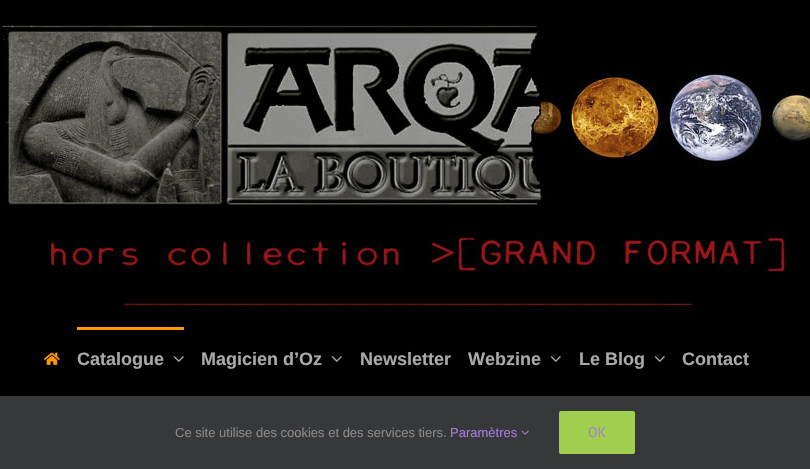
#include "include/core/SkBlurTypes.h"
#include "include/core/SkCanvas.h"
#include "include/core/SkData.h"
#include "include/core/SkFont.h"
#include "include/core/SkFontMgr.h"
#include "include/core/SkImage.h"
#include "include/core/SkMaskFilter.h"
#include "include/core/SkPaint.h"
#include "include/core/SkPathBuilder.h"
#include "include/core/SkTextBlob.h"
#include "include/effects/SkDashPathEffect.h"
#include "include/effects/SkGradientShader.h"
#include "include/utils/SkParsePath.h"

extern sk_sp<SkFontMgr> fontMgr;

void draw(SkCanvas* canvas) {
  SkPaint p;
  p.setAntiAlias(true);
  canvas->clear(SK_ColorBLACK);
  canvas->drawImageRect(SkImages::DeferredFromEncodedData(SkData::MakeFromFileName("images/1.png")), SkRect::MakeLTRB(1, 24, 810, 312), SkSamplingOptions());
  canvas->drawImageRect(SkImages::DeferredFromEncodedData(SkData::MakeFromFileName("images/2.png")), SkRect::MakeLTRB(44, 352, 60, 365), SkSamplingOptions());
  p.setColor(SkColorSetRGB(255, 152, 0));
  canvas->drawRect(SkRect::MakeLTRB(77, 327, 184, 330), p);
  canvas->drawImageRect(SkImages::DeferredFromEncodedData(SkData::MakeFromFileName("images/3.png")), SkRect::MakeLTRB(173, 356, 184, 362), SkSamplingOptions());
  canvas->drawImageRect(SkImages::DeferredFromEncodedData(SkData::MakeFromFileName("images/3.png")), SkRect::MakeLTRB(331, 356, 342, 362), SkSamplingOptions());
  canvas->drawImageRect(SkImages::DeferredFromEncodedData(SkData::MakeFromFileName("images/3.png")), SkRect::MakeLTRB(550, 356, 561, 362), SkSamplingOptions());
  canvas->drawImageRect(SkImages::DeferredFromEncodedData(SkData::MakeFromFileName("images/3.png")), SkRect::MakeLTRB(654, 356, 665, 362), SkSamplingOptions());
  p.setColor(SkColorSetRGB(54, 56, 57));
  canvas->drawRect(SkRect::MakeLTRB(0, 396, 810, 469), p);
  canvas->drawImageRect(SkImages::DeferredFromEncodedData(SkData::MakeFromFileName("images/4.png")), SkRect::MakeLTRB(521, 430, 529, 435), SkSamplingOptions());
  p.setColor(SkColorSetRGB(160, 206, 78));
  canvas->drawRoundRect(SkRect::MakeLTRB(559, 411, 635, 454), 2, 2, p);
  SkFont font1(fontMgr->matchFamilyStyle("Liberation Sans", SkFontStyle::Bold()), 18);
  font1.setSubpixel(true);
  p.setColor(SkColorSetRGB(170, 169, 169));
  canvas->drawString("Catalogue", 77, 365, font1, p);
  canvas->drawString("Magicien d’Oz", 201, 365, font1, p);
  canvas->drawString("Newsletter", 360, 365, font1, p);
  canvas->drawString("Webzine", 468, 365, font1, p);
  canvas->drawString("Le Blog", 579, 365, font1, p);
  canvas->drawString("Contact", 682, 365, font1, p);
  SkFont font2(fontMgr->matchFamilyStyle("Liberation Sans", SkFontStyle::Normal()), 13);
  font2.setSubpixel(true);
  p.setColor(SkColorSetRGB(140, 137, 137));
  canvas->drawString("Ce site utilise des cookies et des services tiers.", 175, 437, font2, p);
  p.setColor(SkColorSetRGB(166, 124, 225));
  canvas->drawString("Paramètres", 450, 437, font2, p);
  SkFont font3(fontMgr->matchFamilyStyle("PT Sans", SkFontStyle::Normal()), 14);
  font3.setSubpixel(true);
  canvas->drawString("OK", 588, 437, font3, p);
}
